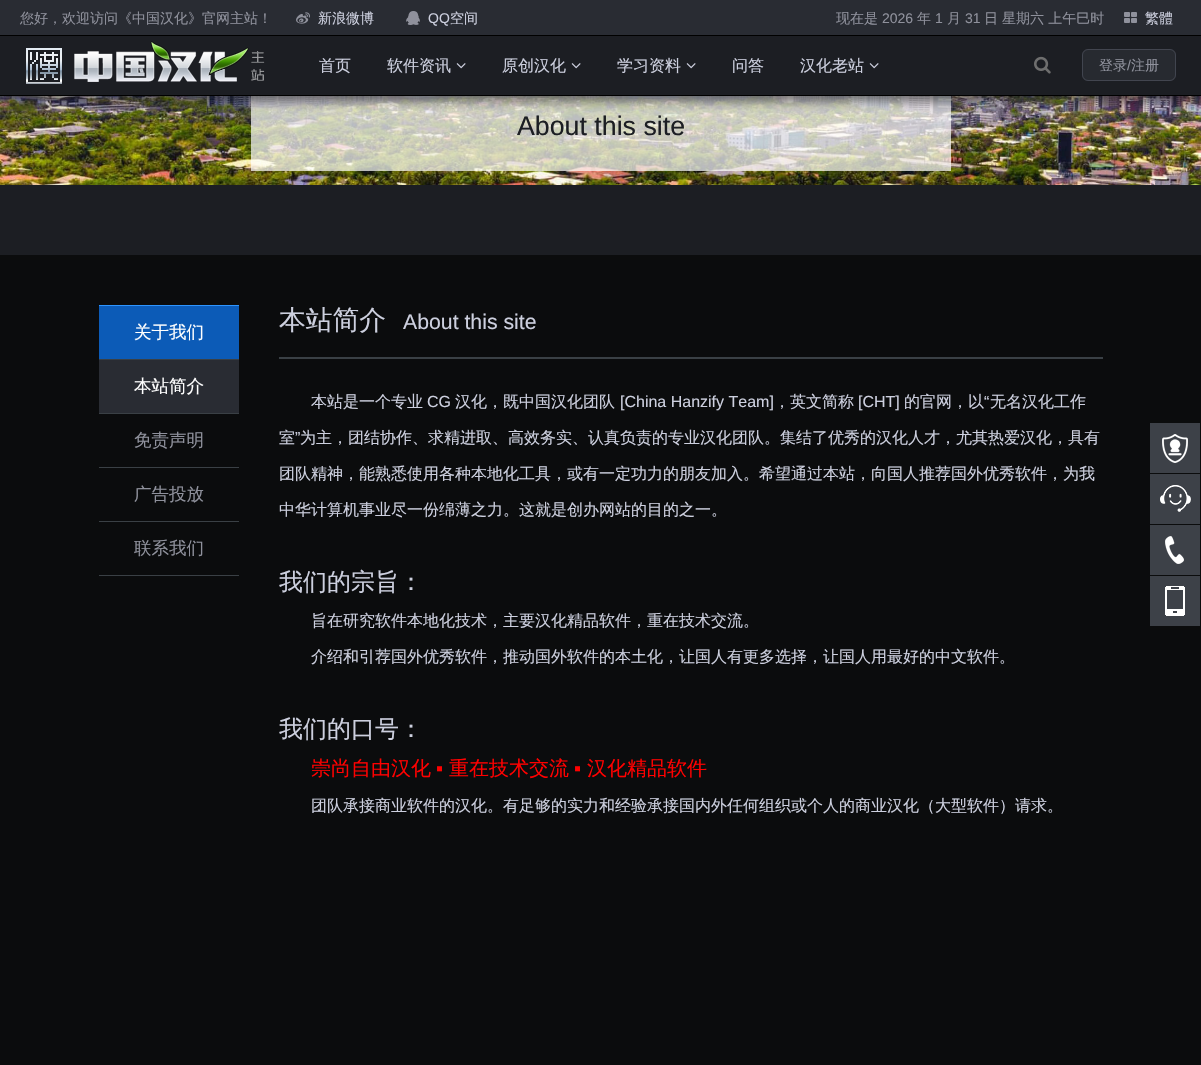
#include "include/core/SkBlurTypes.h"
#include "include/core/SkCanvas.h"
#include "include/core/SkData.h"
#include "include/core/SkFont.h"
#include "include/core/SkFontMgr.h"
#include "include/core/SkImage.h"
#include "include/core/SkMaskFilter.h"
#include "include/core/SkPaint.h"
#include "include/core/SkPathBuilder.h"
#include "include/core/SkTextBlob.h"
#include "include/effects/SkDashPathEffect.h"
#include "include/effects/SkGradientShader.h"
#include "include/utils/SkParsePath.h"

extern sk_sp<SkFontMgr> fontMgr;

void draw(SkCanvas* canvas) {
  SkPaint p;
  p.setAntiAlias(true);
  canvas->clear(SkColorSetRGB(11, 12, 13));
  canvas->drawImageRect(SkImages::DeferredFromEncodedData(SkData::MakeFromFileName("images/7.png")), SkRect::MakeLTRB(0, 96, 1201, 185), SkSamplingOptions());
  p.setColor(SkColorSetARGB(179, 255, 255, 255));
  canvas->drawRect(SkRect::MakeLTRB(251, 96, 951, 171), p);
  p.setColor(SkColorSetARGB(128, 0, 0, 0));
  p.setMaskFilter(SkMaskFilter::MakeBlur(kNormal_SkBlurStyle, 5));
  canvas->drawRect(SkRect::MakeLTRB(0, 6, 1201, 102), p);
  p.setMaskFilter(nullptr);
  p.setColor(SkColorSetRGB(28, 30, 35));
  canvas->drawRect(SkRect::MakeLTRB(0, 36, 1201, 95), p);
  p.setColor(SK_ColorBLACK);
  canvas->drawRect(SkRect::MakeLTRB(0, 95, 1201, 96), p);
  p.setColor(SkColorSetRGB(41, 44, 51));
  canvas->drawRect(SkRect::MakeLTRB(0, 0, 1201, 35), p);
  p.setColor(SK_ColorBLACK);
  canvas->drawRect(SkRect::MakeLTRB(0, 35, 1201, 36), p);
  canvas->drawImageRect(SkImages::DeferredFromEncodedData(SkData::MakeFromFileName("images/1.png")), SkRect::MakeLTRB(296, 12, 310, 24), SkSamplingOptions());
  canvas->drawImageRect(SkImages::DeferredFromEncodedData(SkData::MakeFromFileName("images/2.png")), SkRect::MakeLTRB(406, 11, 420, 25), SkSamplingOptions());
  canvas->drawImageRect(SkImages::DeferredFromEncodedData(SkData::MakeFromFileName("images/3.png")), SkRect::MakeLTRB(1124, 12, 1137, 23), SkSamplingOptions());
  canvas->drawImageRect(SkImages::DeferredFromEncodedData(SkData::MakeFromFileName("images/4.png")), SkRect::MakeLTRB(26, 41, 265, 84), SkSamplingOptions());
  canvas->drawImageRect(SkImages::DeferredFromEncodedData(SkData::MakeFromFileName("images/5.png")), SkRect::MakeLTRB(456, 63, 466, 69), SkSamplingOptions());
  canvas->drawImageRect(SkImages::DeferredFromEncodedData(SkData::MakeFromFileName("images/5.png")), SkRect::MakeLTRB(571, 63, 581, 69), SkSamplingOptions());
  canvas->drawImageRect(SkImages::DeferredFromEncodedData(SkData::MakeFromFileName("images/5.png")), SkRect::MakeLTRB(686, 63, 696, 69), SkSamplingOptions());
  canvas->drawImageRect(SkImages::DeferredFromEncodedData(SkData::MakeFromFileName("images/5.png")), SkRect::MakeLTRB(869, 63, 879, 69), SkSamplingOptions());
  canvas->drawImageRect(SkImages::DeferredFromEncodedData(SkData::MakeFromFileName("images/6.png")), SkRect::MakeLTRB(1034, 56, 1051, 74), SkSamplingOptions());
  p.setColor(SkColorSetRGB(39, 42, 48));
  canvas->drawRoundRect(SkRect::MakeLTRB(1082, 49, 1176, 81), 6, 6, p);
  p.setStyle(SkPaint::kStroke_Style);
  p.setStrokeWidth(1);
  p.setColor(SkColorSetARGB(38, 212, 224, 255));
  canvas->drawRoundRect(SkRect::MakeLTRB(1082.5f, 49.5f, 1175.5f, 80.5f), 5.5f, 5.5f, p);
  p.setStyle(SkPaint::kFill_Style);
  p.setColor(SkColorSetRGB(28, 30, 35));
  canvas->drawRect(SkRect::MakeLTRB(0, 185, 1201, 255), p);
  p.setColor(SkColorSetRGB(58, 64, 69));
  canvas->drawRect(SkRect::MakeLTRB(99, 575, 239, 576), p);
  p.setColor(SkColorSetRGB(12, 91, 183));
  canvas->drawRect(SkRect::MakeLTRB(99, 306, 239, 359), p);
  p.setColor(SkColorSetRGB(46, 149, 255));
  canvas->drawRect(SkRect::MakeLTRB(99, 305, 239, 306), p);
  p.setColor(SkColorSetRGB(41, 44, 51));
  canvas->drawRect(SkRect::MakeLTRB(99, 360, 239, 413), p);
  p.setColor(SkColorSetRGB(58, 64, 69));
  canvas->drawRect(SkRect::MakeLTRB(99, 359, 239, 360), p);
  canvas->drawRect(SkRect::MakeLTRB(99, 413, 239, 414), p);
  canvas->drawRect(SkRect::MakeLTRB(99, 467, 239, 468), p);
  canvas->drawRect(SkRect::MakeLTRB(99, 521, 239, 522), p);
  canvas->drawRect(SkRect::MakeLTRB(279, 357, 1103, 359), p);
  p.setColor(SkColorSetRGB(61, 65, 72));
  canvas->drawRect(SkRect::MakeLTRB(1150, 423, 1200, 473), p);
  canvas->drawImageRect(SkImages::DeferredFromEncodedData(SkData::MakeFromFileName("images/8.png")), SkRect::MakeLTRB(1162, 434, 1188, 463), SkSamplingOptions());
  canvas->drawRect(SkRect::MakeLTRB(1150, 474, 1200, 524), p);
  canvas->drawImageRect(SkImages::DeferredFromEncodedData(SkData::MakeFromFileName("images/9.png")), SkRect::MakeLTRB(1160, 485, 1191, 512), SkSamplingOptions());
  canvas->drawRect(SkRect::MakeLTRB(1150, 525, 1200, 575), p);
  canvas->drawImageRect(SkImages::DeferredFromEncodedData(SkData::MakeFromFileName("images/10.png")), SkRect::MakeLTRB(1165, 536, 1184, 564), SkSamplingOptions());
  canvas->drawRect(SkRect::MakeLTRB(1150, 576, 1200, 626), p);
  canvas->drawImageRect(SkImages::DeferredFromEncodedData(SkData::MakeFromFileName("images/11.png")), SkRect::MakeLTRB(1165, 586, 1185, 616), SkSamplingOptions());
  SkFont font1(fontMgr->matchFamilyStyle("WenQuanYi Zen Hei", SkFontStyle(500, SkFontStyle::kNormal_Width, SkFontStyle::kUpright_Slant)), 14);
  font1.setSubpixel(true);
  p.setColor(SkColorSetRGB(143, 145, 156));
  canvas->drawString("您好，欢迎访问《中国汉化》官网主站！", 20, 23, font1, p);
  p.setColor(SkColorSetRGB(205, 208, 223));
  canvas->drawString("新浪微博", 318, 23, font1, p);
  SkFont font2(fontMgr->matchFamilyStyle("Liberation Sans", SkFontStyle::Normal()), 14);
  font2.setSubpixel(true);
  canvas->drawString("QQ", 428, 23, font2, p);
  canvas->drawString("空间", 450, 23, font1, p);
  p.setColor(SkColorSetRGB(143, 145, 156));
  canvas->drawString("现在是", 836, 23, font1, p);
  canvas->drawString("2026", 882, 23, font2, p);
  canvas->drawString("年", 917, 23, font1, p);
  canvas->drawString("1", 935, 23, font2, p);
  canvas->drawString("月", 947, 23, font1, p);
  canvas->drawString("31", 965, 23, font2, p);
  canvas->drawString("日", 984, 23, font1, p);
  canvas->drawString("星期六 上午巳时", 1002, 23, font1, p);
  p.setColor(SkColorSetRGB(205, 208, 223));
  canvas->drawString("繁體", 1145, 23, font1, p);
  SkFont font3(fontMgr->matchFamilyStyle("WenQuanYi Zen Hei", SkFontStyle(500, SkFontStyle::kNormal_Width, SkFontStyle::kUpright_Slant)), 16);
  font3.setSubpixel(true);
  canvas->drawString("首页", 319, 71, font3, p);
  canvas->drawString("软件资讯", 387, 71, font3, p);
  canvas->drawString("原创汉化", 502, 71, font3, p);
  canvas->drawString("学习资料", 617, 71, font3, p);
  canvas->drawString("问答", 732, 71, font3, p);
  canvas->drawString("汉化老站", 800, 71, font3, p);
  p.setColor(SkColorSetRGB(143, 145, 156));
  canvas->drawString("登录", 1099, 70, font1, p);
  canvas->drawString("/", 1127, 70, font2, p);
  canvas->drawString("注册", 1131, 70, font1, p);
  SkFont font4(fontMgr->matchFamilyStyle("Liberation Sans", SkFontStyle::Normal()), 26.75f);
  font4.setSubpixel(true);
  p.setColor(SkColorSetRGB(28, 30, 35));
  canvas->drawString("About this site", 517, 135, font4, p);
  SkFont font5(fontMgr->matchFamilyStyle("WenQuanYi Zen Hei", SkFontStyle(500, SkFontStyle::kNormal_Width, SkFontStyle::kUpright_Slant)), 17.5f);
  font5.setSubpixel(true);
  p.setColor(SK_ColorWHITE);
  canvas->drawString("关于我们", 134, 338, font5, p);
  canvas->drawString("本站简介", 134, 392, font5, p);
  p.setColor(SkColorSetRGB(143, 145, 156));
  canvas->drawString("免责声明", 134, 446, font5, p);
  canvas->drawString("广告投放", 134, 500, font5, p);
  canvas->drawString("联系我们", 134, 554, font5, p);
  SkFont font6(fontMgr->matchFamilyStyle("WenQuanYi Zen Hei", SkFontStyle(500, SkFontStyle::kNormal_Width, SkFontStyle::kUpright_Slant)), 26.75f);
  font6.setSubpixel(true);
  p.setColor(SkColorSetRGB(205, 208, 223));
  canvas->drawString("本站简介", 279, 329, font6, p);
  SkFont font7(fontMgr->matchFamilyStyle("Liberation Sans", SkFontStyle::Normal()), 21.25f);
  font7.setSubpixel(true);
  canvas->drawString("About this site", 403, 329, font7, p);
  canvas->drawString("本站是一个专业", 311, 407, font3, p);
  SkFont font8(fontMgr->matchFamilyStyle("Liberation Sans", SkFontStyle::Normal()), 16);
  font8.setSubpixel(true);
  canvas->drawString("CG", 427, 407, font8, p);
  canvas->drawString("汉化，既中国汉化团队", 455, 407, font3, p);
  canvas->drawString("[China Hanzify Team]", 620, 407, font8, p);
  canvas->drawString("，英文简称", 774, 407, font3, p);
  canvas->drawString("[CHT]", 858, 407, font8, p);
  canvas->drawString("的官网，以", 904, 407, font3, p);
  canvas->drawString("“", 984, 407, font8, p);
  canvas->drawString("无名汉化工作", 990, 407, font3, p);
  canvas->drawString("室", 279, 443, font3, p);
  canvas->drawString("”", 295, 443, font8, p);
  canvas->drawString("为主，团结协作、求精进取、高效务实、认真负责的专业汉化团队。集结了优秀的汉化人才，尤其热爱汉化，具有", 300, 443, font3, p);
  canvas->drawString("团队精神，能熟悉使用各种本地化工具，或有一定功力的朋友加入。希望通过本站，向国人推荐国外优秀软件，为我", 279, 479, font3, p);
  canvas->drawString("中华计算机事业尽一份绵薄之力。这就是创办网站的目的之一。", 279, 515, font3, p);
  SkFont font9(fontMgr->matchFamilyStyle("WenQuanYi Zen Hei", SkFontStyle(500, SkFontStyle::kNormal_Width, SkFontStyle::kUpright_Slant)), 24);
  font9.setSubpixel(true);
  canvas->drawString("我们的宗旨：", 279, 590, font9, p);
  canvas->drawString("旨在研究软件本地化技术，主要汉化精品软件，重在技术交流。", 311, 626, font3, p);
  canvas->drawString("介绍和引荐国外优秀软件，推动国外软件的本土化，让国人有更多选择，让国人用最好的中文软件。", 311, 662, font3, p);
  canvas->drawString("我们的口号：", 279, 737, font9, p);
  SkFont font10(fontMgr->matchFamilyStyle("WenQuanYi Zen Hei", SkFontStyle(500, SkFontStyle::kNormal_Width, SkFontStyle::kUpright_Slant)), 20);
  font10.setSubpixel(true);
  p.setColor(SkColorSetRGB(255, 0, 0));
  canvas->drawString("崇尚自由汉化", 311, 775, font10, p);
  SkFont font11(fontMgr->matchFamilyStyle("Liberation Sans", SkFontStyle::Normal()), 20);
  font11.setSubpixel(true);
  canvas->drawString("▪", 436, 775, font11, p);
  canvas->drawString("重在技术交流", 449, 775, font10, p);
  canvas->drawString("▪", 574, 775, font11, p);
  canvas->drawString("汉化精品软件", 587, 775, font10, p);
  p.setColor(SkColorSetRGB(205, 208, 223));
  canvas->drawString("团队承接商业软件的汉化。有足够的实力和经验承接国内外任何组织或个人的商业汉化（大型软件）请求。", 311, 811, font3, p);
}
